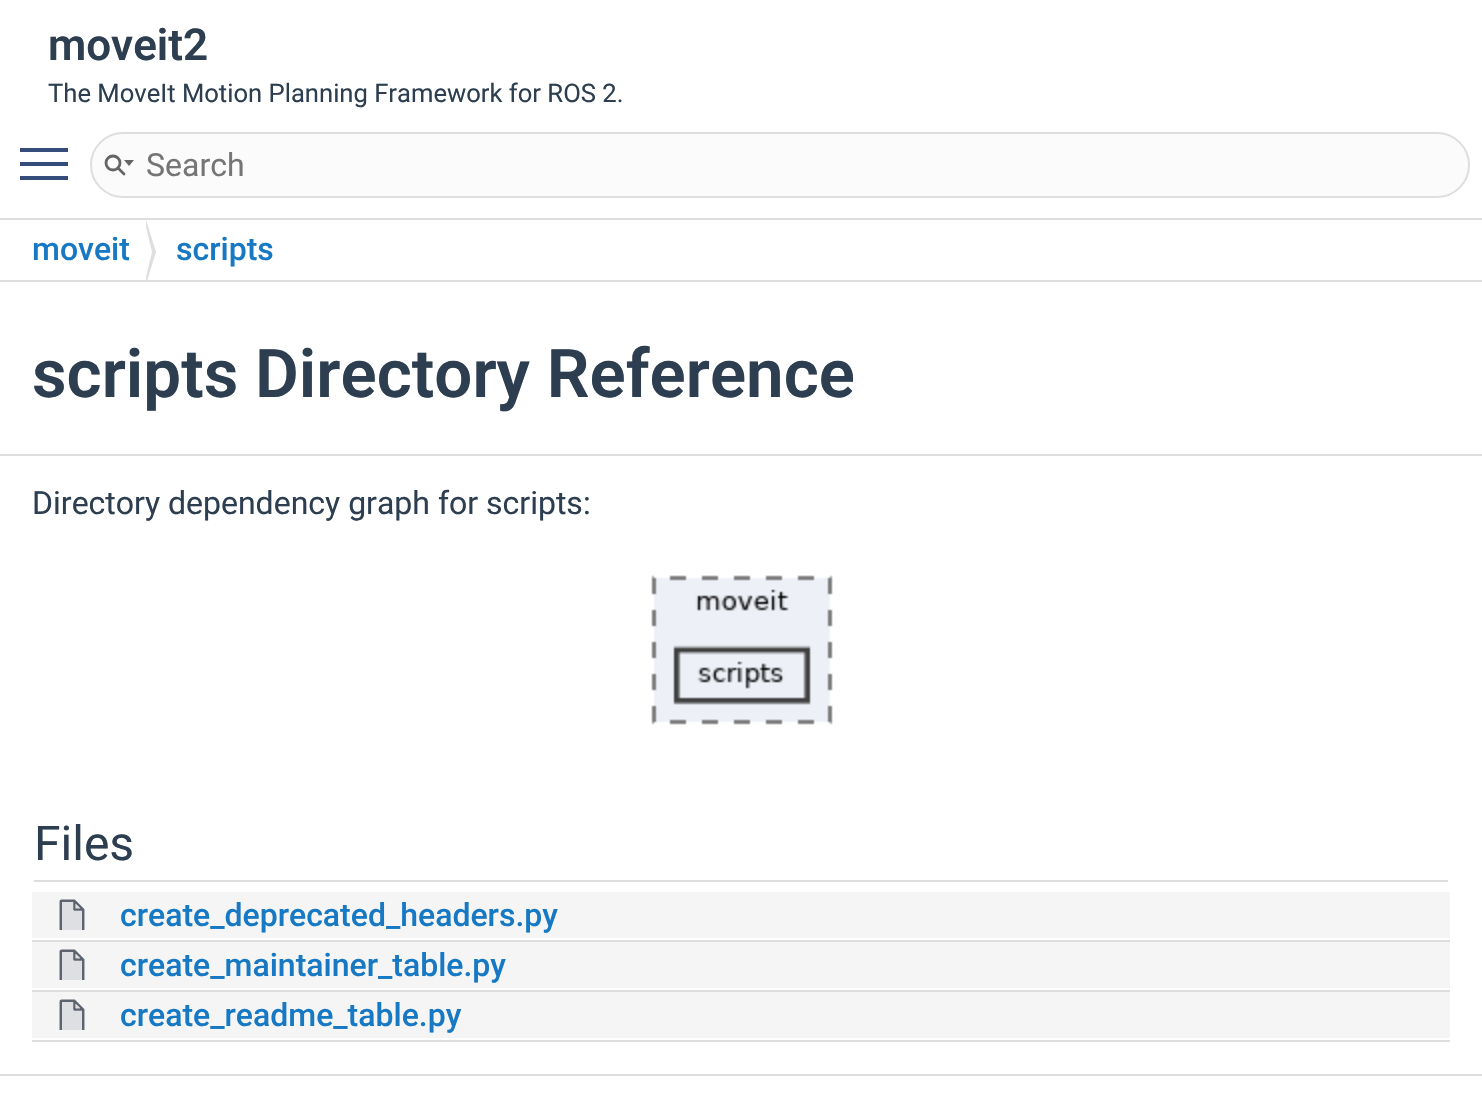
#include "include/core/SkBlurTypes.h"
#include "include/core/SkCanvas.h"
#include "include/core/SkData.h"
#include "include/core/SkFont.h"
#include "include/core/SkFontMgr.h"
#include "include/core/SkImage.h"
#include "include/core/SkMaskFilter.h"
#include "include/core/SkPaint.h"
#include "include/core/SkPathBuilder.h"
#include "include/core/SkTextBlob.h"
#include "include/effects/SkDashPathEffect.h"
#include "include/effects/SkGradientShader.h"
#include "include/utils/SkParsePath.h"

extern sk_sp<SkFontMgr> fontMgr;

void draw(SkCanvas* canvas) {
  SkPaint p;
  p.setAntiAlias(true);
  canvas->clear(SK_ColorWHITE);
  p.setColor(SkColorSetRGB(54, 77, 124));
  canvas->drawRect(SkRect::MakeLTRB(20, 162, 68, 166), p);
  canvas->drawRect(SkRect::MakeLTRB(20, 148, 68, 152), p);
  canvas->drawRect(SkRect::MakeLTRB(20, 176, 68, 180), p);
  p.setColor(SkColorSetRGB(251, 251, 251));
  canvas->drawRoundRect(SkRect::MakeLTRB(91, 133, 1469, 197), 32, 32, p);
  p.setStyle(SkPaint::kStroke_Style);
  p.setStrokeWidth(2);
  p.setColor(SkColorSetRGB(222, 222, 222));
  canvas->drawRoundRect(SkRect::MakeLTRB(91, 133, 1469, 197), 32, 32, p);
  p.setStrokeWidth(2.8f);
  p.setColor(SkColorSetRGB(101, 101, 101));
  canvas->drawCircle(113, 163, 7, p);
  p.setStyle(SkPaint::kFill_Style);
  canvas->drawPath(SkPathBuilder().moveTo(124, 160).lineTo(129, 166).lineTo(134, 160).close().detach(), p);
  p.setStyle(SkPaint::kStroke_Style);
  p.setStrokeCap(SkPaint::kRound_Cap);
  canvas->drawPath(SkPathBuilder().moveTo(118, 168).lineTo(124, 174).detach(), p);
  p.setStyle(SkPaint::kFill_Style);
  p.setColor(SkColorSetRGB(222, 222, 222));
  canvas->drawRect(SkRect::MakeLTRB(0, 218, 1482, 220), p);
  canvas->drawRect(SkRect::MakeLTRB(0, 280, 1482, 282), p);
  canvas->save();
  canvas->clipRect(SkRect::MakeLTRB(0, 220, 1482, 280));
  canvas->drawPath(SkPathBuilder().moveTo(146, 284).lineTo(146, 220).lineTo(156, 252).close().detach(), p);
  p.setColor(SK_ColorWHITE);
  canvas->drawPath(SkPathBuilder().moveTo(142, 294).lineTo(142, 210).lineTo(152, 252).close().detach(), p);
  canvas->restore();
  p.setColor(SkColorSetRGB(222, 222, 222));
  canvas->drawRect(SkRect::MakeLTRB(0, 454, 1482, 456), p);
  canvas->drawImageRect(SkImages::DeferredFromEncodedData(SkData::MakeFromFileName("images/1.png")), SkRect::MakeLTRB(651, 575, 833, 725), SkSamplingOptions());
  canvas->drawRect(SkRect::MakeLTRB(34, 880, 1448, 882), p);
  p.setColor(SkColorSetRGB(245, 245, 245));
  canvas->drawRect(SkRect::MakeLTRB(32, 892, 1450, 938), p);
  canvas->drawImageRect(SkImages::DeferredFromEncodedData(SkData::MakeFromFileName("images/2.png")), SkRect::MakeLTRB(59, 899, 85, 930), SkSamplingOptions());
  p.setColor(SkColorSetRGB(222, 222, 222));
  canvas->drawRect(SkRect::MakeLTRB(32, 940, 1450, 942), p);
  p.setColor(SkColorSetRGB(245, 245, 245));
  canvas->drawRect(SkRect::MakeLTRB(32, 942, 1450, 988), p);
  canvas->drawImageRect(SkImages::DeferredFromEncodedData(SkData::MakeFromFileName("images/2.png")), SkRect::MakeLTRB(59, 949, 85, 980), SkSamplingOptions());
  p.setColor(SkColorSetRGB(222, 222, 222));
  canvas->drawRect(SkRect::MakeLTRB(32, 990, 1450, 992), p);
  p.setColor(SkColorSetRGB(245, 245, 245));
  canvas->drawRect(SkRect::MakeLTRB(32, 992, 1450, 1038), p);
  canvas->drawImageRect(SkImages::DeferredFromEncodedData(SkData::MakeFromFileName("images/2.png")), SkRect::MakeLTRB(59, 999, 85, 1030), SkSamplingOptions());
  p.setColor(SkColorSetRGB(222, 222, 222));
  canvas->drawRect(SkRect::MakeLTRB(32, 1040, 1450, 1042), p);
  canvas->drawRect(SkRect::MakeLTRB(0, 1074, 1482, 1076), p);
  SkFont font1(fontMgr->matchFamilyStyle("Roboto", SkFontStyle(600, SkFontStyle::kNormal_Width, SkFontStyle::kUpright_Slant)), 44);
  font1.setSubpixel(true);
  p.setColor(SkColorSetRGB(44, 62, 80));
  canvas->drawString("moveit2", 48, 60, font1, p);
  SkFont font2(fontMgr->matchFamilyStyle("Roboto", SkFontStyle::Normal()), 25.6f);
  font2.setSubpixel(true);
  canvas->drawString("The MoveIt Motion Planning Framework for ROS 2.", 48, 102, font2, p);
  SkFont font3(fontMgr->matchFamilyStyle("Roboto", SkFontStyle::Normal()), 32);
  font3.setSubpixel(true);
  p.setColor(SkColorSetRGB(117, 117, 117));
  canvas->drawString("Search", 146, 176, font3, p);
  SkFont font4(fontMgr->matchFamilyStyle("Roboto", SkFontStyle(500, SkFontStyle::kNormal_Width, SkFontStyle::kUpright_Slant)), 32);
  font4.setSubpixel(true);
  p.setColor(SkColorSetRGB(23, 121, 196));
  canvas->drawString("moveit", 32, 260, font4, p);
  canvas->drawString("scripts", 176, 260, font4, p);
  SkFont font5(fontMgr->matchFamilyStyle("Roboto", SkFontStyle(600, SkFontStyle::kNormal_Width, SkFontStyle::kUpright_Slant)), 67.25f);
  font5.setSubpixel(true);
  p.setColor(SkColorSetRGB(44, 62, 80));
  canvas->drawString("scripts Directory Reference", 32, 397, font5, p);
  canvas->drawString("Directory dependency graph for scripts:", 32, 514, font3, p);
  SkFont font6(fontMgr->matchFamilyStyle("Roboto", SkFontStyle::Normal()), 48);
  font6.setSubpixel(true);
  canvas->drawString("Files", 34, 860, font6, p);
  p.setColor(SkColorSetRGB(23, 121, 196));
  canvas->drawString("create_deprecated_headers.py", 120, 926, font4, p);
  canvas->drawString("create_maintainer_table.py", 120, 976, font4, p);
  canvas->drawString("create_readme_table.py", 120, 1026, font4, p);
}
